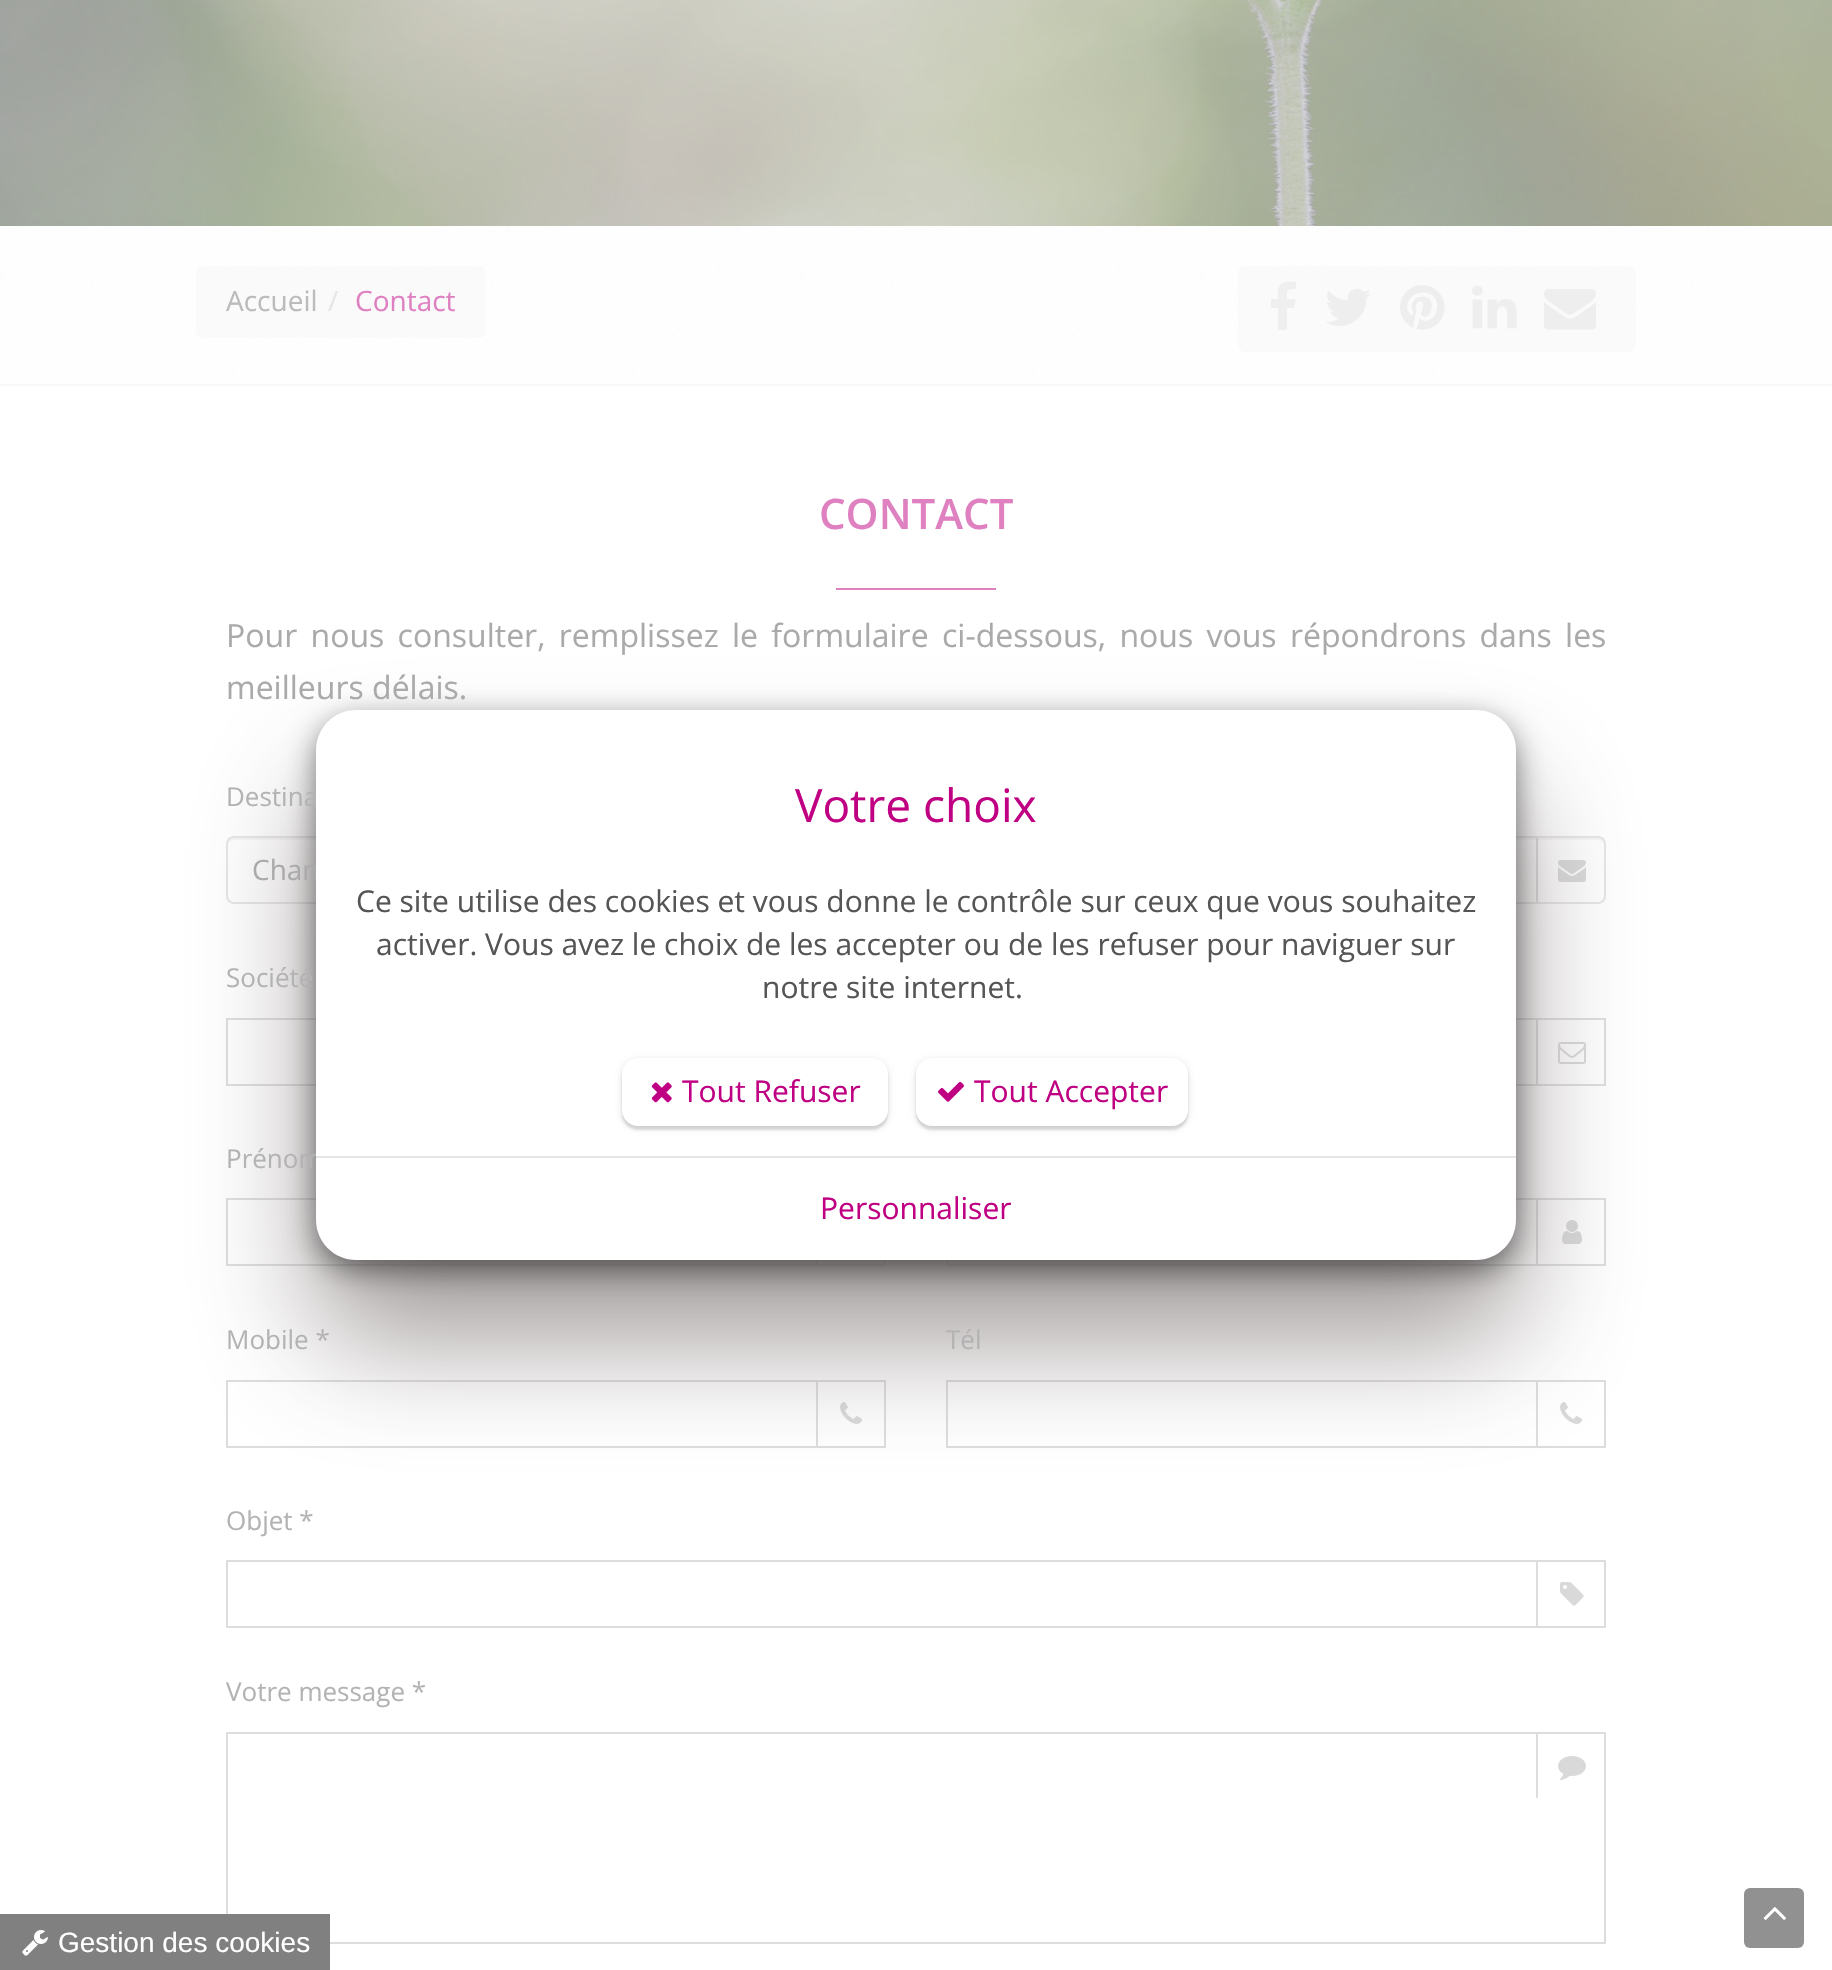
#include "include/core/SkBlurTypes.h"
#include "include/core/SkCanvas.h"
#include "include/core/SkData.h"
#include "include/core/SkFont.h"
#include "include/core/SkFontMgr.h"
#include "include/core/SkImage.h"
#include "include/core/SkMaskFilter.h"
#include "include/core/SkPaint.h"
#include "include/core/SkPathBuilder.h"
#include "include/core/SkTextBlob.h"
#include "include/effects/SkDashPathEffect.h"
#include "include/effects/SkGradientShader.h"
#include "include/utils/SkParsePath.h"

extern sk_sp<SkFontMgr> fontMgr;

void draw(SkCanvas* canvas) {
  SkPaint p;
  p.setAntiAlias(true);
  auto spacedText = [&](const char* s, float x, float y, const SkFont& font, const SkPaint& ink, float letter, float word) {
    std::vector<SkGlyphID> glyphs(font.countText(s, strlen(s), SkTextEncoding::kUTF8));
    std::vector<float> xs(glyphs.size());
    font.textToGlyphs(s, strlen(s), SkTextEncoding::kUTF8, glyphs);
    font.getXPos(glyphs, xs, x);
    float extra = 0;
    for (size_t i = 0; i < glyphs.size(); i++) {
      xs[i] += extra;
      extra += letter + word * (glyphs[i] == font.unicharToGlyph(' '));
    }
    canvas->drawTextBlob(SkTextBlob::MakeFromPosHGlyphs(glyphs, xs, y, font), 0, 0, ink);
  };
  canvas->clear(SK_ColorWHITE);
  canvas->drawImageRect(SkImages::DeferredFromEncodedData(SkData::MakeFromFileName("images/1.png")), SkRect::MakeLTRB(0, 0, 1832, 226), SkSamplingOptions());
  canvas->drawImageRect(SkImages::DeferredFromEncodedData(SkData::MakeFromFileName("images/2.png")), SkRect::MakeLTRB(0, 226, 1832, 384), SkSamplingOptions());
  p.setColor(SkColorSetRGB(247, 247, 247));
  canvas->drawRect(SkRect::MakeLTRB(0, 384, 1832, 386), p);
  p.setColor(SkColorSetRGB(250, 250, 250));
  canvas->drawRoundRect(SkRect::MakeLTRB(196, 266, 486, 338), 8, 8, p);
  canvas->drawRoundRect(SkRect::MakeLTRB(1238, 266, 1636, 352), 8, 8, p);
  p.setColor(SkColorSetRGB(239, 239, 239));
  canvas->drawPath(SkPathBuilder().moveTo(1296, 282).lineTo(1296, 289).cubicTo(1286, 289, 1287, 290, 1287, 299).lineTo(1296, 299).lineTo(1294, 308).lineTo(1287, 308).lineTo(1287, 330).lineTo(1278, 330).lineTo(1278, 308).lineTo(1271, 308).lineTo(1271, 299).lineTo(1278, 299).lineTo(1278, 290).cubicTo(1280, 281, 1289, 281, 1296, 282).close().detach(), p);
  canvas->drawImageRect(SkImages::DeferredFromEncodedData(SkData::MakeFromFileName("images/3.png")), SkRect::MakeLTRB(1326, 289, 1371, 326), SkSamplingOptions());
  canvas->drawImageRect(SkImages::DeferredFromEncodedData(SkData::MakeFromFileName("images/4.png")), SkRect::MakeLTRB(1400, 285, 1445, 330), SkSamplingOptions());
  canvas->drawImageRect(SkImages::DeferredFromEncodedData(SkData::MakeFromFileName("images/5.png")), SkRect::MakeLTRB(1472, 285, 1517, 329), SkSamplingOptions());
  canvas->drawImageRect(SkImages::DeferredFromEncodedData(SkData::MakeFromFileName("images/6.png")), SkRect::MakeLTRB(1544, 289, 1596, 330), SkSamplingOptions());
  p.setColor(SkColorSetRGB(223, 128, 193));
  canvas->drawRect(SkRect::MakeLTRB(836, 588, 996, 590), p);
  p.setColor(SkColorSetRGB(246, 246, 246));
  canvas->drawPath(SkPathBuilder().moveTo(234, 840).lineTo(1598, 840).cubicTo(1601, 840, 1604, 843, 1604, 846).lineTo(1604, 844).cubicTo(1604, 841, 1601, 838, 1598, 838).lineTo(234, 838).cubicTo(231, 838, 228, 841, 228, 844).lineTo(228, 846).cubicTo(228, 843, 231, 840, 234, 840).close().detach(), p);
  p.setStyle(SkPaint::kStroke_Style);
  p.setStrokeWidth(2);
  p.setColor(SkColorSetRGB(230, 230, 230));
  canvas->drawRoundRect(SkRect::MakeLTRB(227, 837, 1605, 903), 7, 7, p);
  p.setStyle(SkPaint::kFill_Style);
  p.setColor(SkColorSetRGB(221, 221, 221));
  canvas->drawRect(SkRect::MakeLTRB(1536, 838, 1538, 902), p);
  canvas->drawImageRect(SkImages::DeferredFromEncodedData(SkData::MakeFromFileName("images/7.png")), SkRect::MakeLTRB(1558, 860, 1586, 882), SkSamplingOptions());
  p.setStyle(SkPaint::kStroke_Style);
  canvas->drawRect(SkRect::MakeLTRB(227, 1019, 885, 1085), p);
  canvas->drawRect(SkRect::MakeLTRB(947, 1019, 1605, 1085), p);
  p.setStyle(SkPaint::kFill_Style);
  canvas->drawRect(SkRect::MakeLTRB(1536, 1020, 1538, 1084), p);
  canvas->drawImageRect(SkImages::DeferredFromEncodedData(SkData::MakeFromFileName("images/8.png")), SkRect::MakeLTRB(1558, 1042, 1586, 1064), SkSamplingOptions());
  p.setStyle(SkPaint::kStroke_Style);
  canvas->drawRect(SkRect::MakeLTRB(227, 1199, 885, 1265), p);
  p.setStyle(SkPaint::kFill_Style);
  canvas->drawRect(SkRect::MakeLTRB(816, 1260, 818, 1264), p);
  p.setStyle(SkPaint::kStroke_Style);
  canvas->drawRect(SkRect::MakeLTRB(947, 1199, 1605, 1265), p);
  p.setStyle(SkPaint::kFill_Style);
  canvas->drawRect(SkRect::MakeLTRB(1536, 1200, 1538, 1264), p);
  canvas->drawImageRect(SkImages::DeferredFromEncodedData(SkData::MakeFromFileName("images/9.png")), SkRect::MakeLTRB(1562, 1220, 1582, 1244), SkSamplingOptions());
  p.setStyle(SkPaint::kStroke_Style);
  canvas->drawRect(SkRect::MakeLTRB(227, 1381, 885, 1447), p);
  p.setStyle(SkPaint::kFill_Style);
  canvas->drawRect(SkRect::MakeLTRB(816, 1382, 818, 1446), p);
  canvas->drawImageRect(SkImages::DeferredFromEncodedData(SkData::MakeFromFileName("images/10.png")), SkRect::MakeLTRB(840, 1402, 862, 1424), SkSamplingOptions());
  p.setStyle(SkPaint::kStroke_Style);
  canvas->drawRect(SkRect::MakeLTRB(947, 1381, 1605, 1447), p);
  p.setStyle(SkPaint::kFill_Style);
  canvas->drawRect(SkRect::MakeLTRB(1536, 1382, 1538, 1446), p);
  canvas->drawImageRect(SkImages::DeferredFromEncodedData(SkData::MakeFromFileName("images/10.png")), SkRect::MakeLTRB(1560, 1402, 1582, 1424), SkSamplingOptions());
  p.setStyle(SkPaint::kStroke_Style);
  canvas->drawRect(SkRect::MakeLTRB(227, 1561, 1605, 1627), p);
  p.setStyle(SkPaint::kFill_Style);
  canvas->drawRect(SkRect::MakeLTRB(1536, 1562, 1538, 1626), p);
  canvas->drawImageRect(SkImages::DeferredFromEncodedData(SkData::MakeFromFileName("images/11.png")), SkRect::MakeLTRB(1560, 1582, 1584, 1606), SkSamplingOptions());
  p.setStyle(SkPaint::kStroke_Style);
  canvas->drawRect(SkRect::MakeLTRB(227, 1733, 1605, 1943), p);
  p.setStyle(SkPaint::kFill_Style);
  canvas->drawRect(SkRect::MakeLTRB(1536, 1734, 1538, 1798), p);
  canvas->drawImageRect(SkImages::DeferredFromEncodedData(SkData::MakeFromFileName("images/12.png")), SkRect::MakeLTRB(1558, 1756, 1586, 1780), SkSamplingOptions());
  p.setColor(SkColorSetARGB(224, 149, 141, 141));
  p.setMaskFilter(SkMaskFilter::MakeBlur(kNormal_SkBlurStyle, 60));
  canvas->drawRoundRect(SkRect::MakeLTRB(316, 790, 1516, 1340), 40, 40, p);
  p.setMaskFilter(nullptr);
  p.setColor(SkColorSetARGB(128, 0, 0, 0));
  p.setMaskFilter(SkMaskFilter::MakeBlur(kNormal_SkBlurStyle, 15));
  canvas->drawRoundRect(SkRect::MakeLTRB(316, 720, 1516, 1270), 40, 40, p);
  p.setMaskFilter(nullptr);
  p.setColor(SkColorSetRGB(128, 128, 128));
  canvas->drawRect(SkRect::MakeLTRB(0, 1914, 330, 1970), p);
  canvas->drawImageRect(SkImages::DeferredFromEncodedData(SkData::MakeFromFileName("images/15.png")), SkRect::MakeLTRB(22, 1930, 48, 1956), SkSamplingOptions());
  p.setColor(SkColorSetRGB(145, 145, 145));
  canvas->drawRoundRect(SkRect::MakeLTRB(1744, 1888, 1804, 1948), 6, 6, p);
  canvas->drawImageRect(SkImages::DeferredFromEncodedData(SkData::MakeFromFileName("images/16.png")), SkRect::MakeLTRB(1763, 1907, 1786, 1920), SkSamplingOptions());
  SkFont font1(fontMgr->matchFamilyStyle("Open Sans", SkFontStyle::Normal()), 28);
  font1.setSubpixel(true);
  p.setColor(SkColorSetRGB(187, 187, 187));
  canvas->drawString("Accueil", 226, 311, font1, p);
  p.setColor(SkColorSetRGB(230, 230, 230));
  canvas->drawString("/", 328, 311, font1, p);
  p.setColor(SkColorSetRGB(223, 128, 193));
  canvas->drawString("Contact", 355, 311, font1, p);
  SkFont font2(fontMgr->matchFamilyStyle("Open Sans", SkFontStyle(600, SkFontStyle::kNormal_Width, SkFontStyle::kUpright_Slant)), 42);
  font2.setSubpixel(true);
  canvas->drawString("CONTACT", 819, 529, font2, p);
  SkFont font3(fontMgr->matchFamilyStyle("Open Sans", SkFontStyle::Normal()), 32);
  font3.setSubpixel(true);
  p.setColor(SkColorSetRGB(170, 170, 170));
  spacedText("Pour nous consulter, remplissez le formulaire ci-dessous, nous vous répondrons dans les", 226, 647, font3, p, 0, 5);
  canvas->drawString("meilleurs délais.", 226, 699, font3, p);
  SkFont font4(fontMgr->matchFamilyStyle("Open Sans", SkFontStyle::Normal()), 26);
  font4.setSubpixel(true);
  p.setColor(SkColorSetRGB(179, 179, 179));
  canvas->drawString("Destina", 226, 806, font4, p);
  p.setColor(SkColorSetRGB(170, 170, 170));
  canvas->drawString("Chan", 252, 880, font1, p);
  p.setColor(SkColorSetRGB(179, 179, 179));
  canvas->drawString("Société", 226, 987, font4, p);
  canvas->drawString("Prénom", 226, 1168, font4, p);
  canvas->drawString("Mobile *", 226, 1349, font4, p);
  canvas->drawString("Tél", 946, 1349, font4, p);
  canvas->drawString("Objet *", 226, 1530, font4, p);
  canvas->drawString("Votre message *", 226, 1701, font4, p);
  p.setColor(SK_ColorWHITE);
  canvas->drawPath(SkPathBuilder().moveTo(356, 710).lineTo(1476, 710).cubicTo(1498, 710, 1516, 728, 1516, 750).lineTo(1516, 1156).lineTo(316, 1156).lineTo(316, 750).cubicTo(316, 728, 334, 710, 356, 710).close().detach(), p);
  SkFont font5(fontMgr->matchFamilyStyle("Open Sans", SkFontStyle::Normal()), 46);
  font5.setSubpixel(true);
  p.setColor(SkColorSetRGB(191, 0, 130));
  canvas->drawString("Votre choix", 795, 822, font5, p);
  SkFont font6(fontMgr->matchFamilyStyle("Open Sans", SkFontStyle::Normal()), 30);
  font6.setSubpixel(true);
  p.setColor(SkColorSetRGB(85, 85, 85));
  canvas->drawString("Ce site utilise des cookies et vous donne le contrôle sur ceux que vous souhaitez", 356, 912, font6, p);
  canvas->drawString("activer. Vous avez le choix de les accepter ou de les refuser pour naviguer sur", 376, 955, font6, p);
  canvas->drawString("notre site internet.", 762, 998, font6, p);
  p.setColor(SkColorSetARGB(33, 0, 0, 0));
  p.setMaskFilter(SkMaskFilter::MakeBlur(kNormal_SkBlurStyle, 3));
  canvas->drawRoundRect(SkRect::MakeLTRB(622, 1060, 888, 1128), 16, 16, p);
  p.setMaskFilter(nullptr);
  p.setColor(SkColorSetARGB(26, 0, 0, 0));
  p.setMaskFilter(SkMaskFilter::MakeBlur(kNormal_SkBlurStyle, 1));
  canvas->drawRoundRect(SkRect::MakeLTRB(622, 1062, 888, 1130), 16, 16, p);
  p.setMaskFilter(nullptr);
  p.setColor(SK_ColorWHITE);
  canvas->drawRoundRect(SkRect::MakeLTRB(622, 1058, 888, 1126), 16, 16, p);
  canvas->drawImageRect(SkImages::DeferredFromEncodedData(SkData::MakeFromFileName("images/13.png")), SkRect::MakeLTRB(651, 1082, 672, 1103), SkSamplingOptions());
  p.setColor(SkColorSetRGB(191, 0, 130));
  canvas->drawString("Tout Refuser", 682, 1102, font6, p);
  p.setColor(SkColorSetARGB(33, 0, 0, 0));
  p.setMaskFilter(SkMaskFilter::MakeBlur(kNormal_SkBlurStyle, 3));
  canvas->drawRoundRect(SkRect::MakeLTRB(916, 1060, 1188, 1128), 16, 16, p);
  p.setMaskFilter(nullptr);
  p.setColor(SkColorSetARGB(26, 0, 0, 0));
  p.setMaskFilter(SkMaskFilter::MakeBlur(kNormal_SkBlurStyle, 1));
  canvas->drawRoundRect(SkRect::MakeLTRB(916, 1062, 1188, 1130), 16, 16, p);
  p.setMaskFilter(nullptr);
  p.setColor(SK_ColorWHITE);
  canvas->drawRoundRect(SkRect::MakeLTRB(916, 1058, 1188, 1126), 16, 16, p);
  canvas->drawImageRect(SkImages::DeferredFromEncodedData(SkData::MakeFromFileName("images/14.png")), SkRect::MakeLTRB(938, 1081, 964, 1102), SkSamplingOptions());
  p.setColor(SkColorSetRGB(191, 0, 130));
  canvas->drawString("Tout Accepter", 974, 1102, font6, p);
  p.setColor(SK_ColorWHITE);
  canvas->drawPath(SkPathBuilder().moveTo(316, 1156).lineTo(1516, 1156).lineTo(1516, 1220).cubicTo(1516, 1242, 1498, 1260, 1476, 1260).lineTo(356, 1260).cubicTo(334, 1260, 316, 1242, 316, 1220).close().detach(), p);
  p.setColor(SkColorSetRGB(229, 229, 229));
  canvas->drawRect(SkRect::MakeLTRB(316, 1156, 1516, 1158), p);
  p.setColor(SkColorSetRGB(191, 0, 130));
  canvas->drawString("Personnaliser", 820, 1219, font6, p);
  SkFont font7(fontMgr->matchFamilyStyle("Liberation Sans", SkFontStyle::Normal()), 28);
  font7.setSubpixel(true);
  p.setColor(SK_ColorWHITE);
  canvas->drawString("Gestion des cookies", 58, 1952, font7, p);
}
